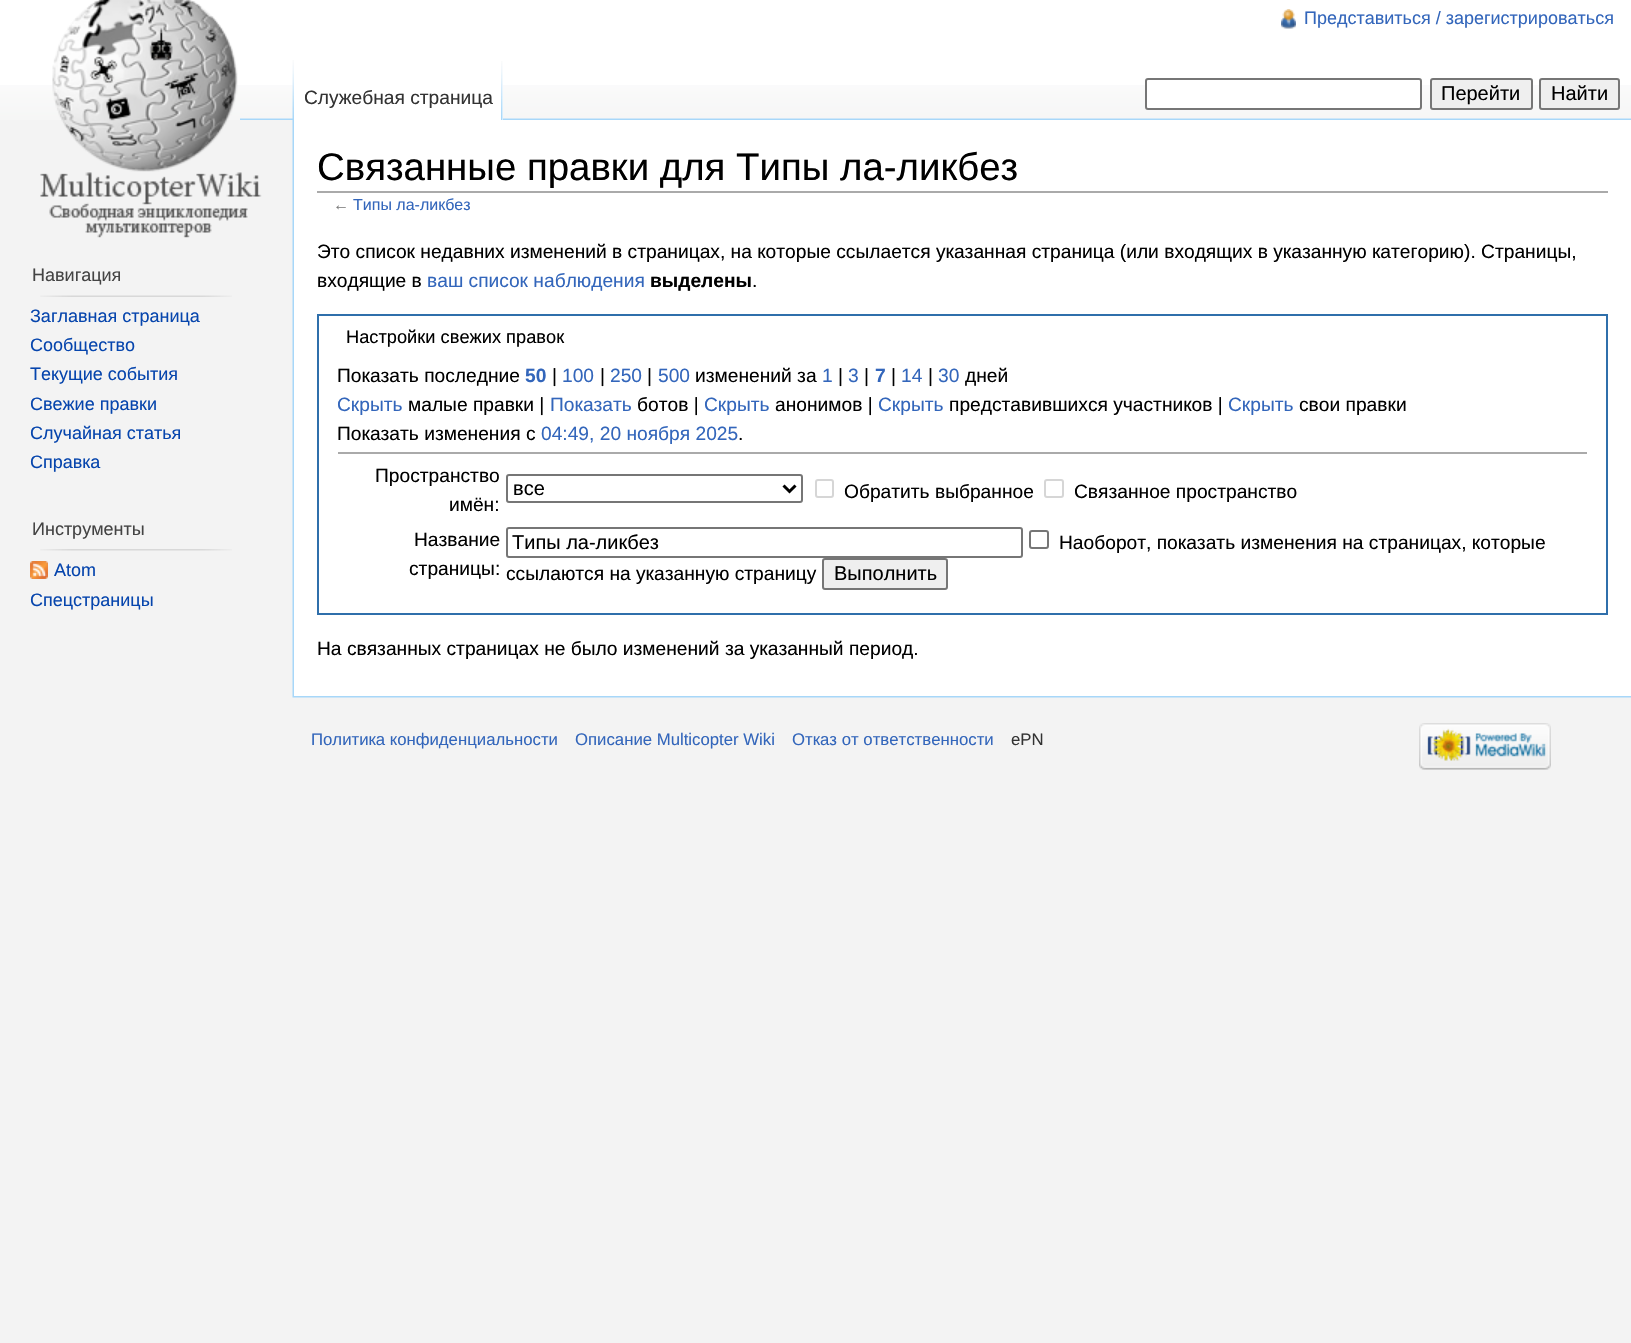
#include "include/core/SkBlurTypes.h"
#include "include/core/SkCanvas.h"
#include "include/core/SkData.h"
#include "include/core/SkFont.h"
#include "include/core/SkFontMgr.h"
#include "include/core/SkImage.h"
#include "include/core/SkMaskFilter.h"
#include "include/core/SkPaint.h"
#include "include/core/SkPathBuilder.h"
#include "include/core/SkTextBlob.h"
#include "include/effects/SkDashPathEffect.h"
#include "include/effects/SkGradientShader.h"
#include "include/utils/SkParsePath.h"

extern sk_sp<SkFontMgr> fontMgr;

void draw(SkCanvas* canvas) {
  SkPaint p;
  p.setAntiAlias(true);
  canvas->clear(SkColorSetRGB(243, 243, 243));
  p.setColor(SK_ColorWHITE);
  canvas->drawRect(SkRect::MakeLTRB(0, 0, 1631, 85), p);
  canvas->drawImageRect(SkImages::DeferredFromEncodedData(SkData::MakeFromFileName("images/1.png")), SkRect::MakeLTRB(0, 85, 1631, 120), SkSamplingOptions());
  canvas->drawImageRect(SkImages::DeferredFromEncodedData(SkData::MakeFromFileName("images/2.png")), SkRect::MakeLTRB(1281, 9, 1296, 29), SkSamplingOptions());
  canvas->drawImageRect(SkImages::DeferredFromEncodedData(SkData::MakeFromFileName("images/5.png")), SkRect::MakeLTRB(240, 118, 1631, 120), SkSamplingOptions());
  canvas->drawImageRect(SkImages::DeferredFromEncodedData(SkData::MakeFromFileName("images/3.png")), SkRect::MakeLTRB(292, 60, 294, 119), SkSamplingOptions());
  canvas->drawRect(SkRect::MakeLTRB(294, 85, 503, 120), p);
  canvas->drawImageRect(SkImages::DeferredFromEncodedData(SkData::MakeFromFileName("images/4.png")), SkRect::MakeLTRB(501, 61, 503, 120), SkSamplingOptions());
  canvas->drawRoundRect(SkRect::MakeLTRB(1146, 79, 1421, 109), 2, 2, p);
  p.setStyle(SkPaint::kStroke_Style);
  p.setStrokeWidth(2);
  p.setColor(SkColorSetRGB(118, 118, 118));
  canvas->drawRoundRect(SkRect::MakeLTRB(1146, 79, 1421, 109), 2, 2, p);
  p.setStyle(SkPaint::kFill_Style);
  p.setColor(SkColorSetRGB(239, 239, 239));
  canvas->drawRoundRect(SkRect::MakeLTRB(1431, 79, 1532, 109), 2, 2, p);
  p.setStyle(SkPaint::kStroke_Style);
  p.setColor(SkColorSetRGB(118, 118, 118));
  canvas->drawRoundRect(SkRect::MakeLTRB(1431, 79, 1532, 109), 2, 2, p);
  p.setStyle(SkPaint::kFill_Style);
  p.setColor(SkColorSetRGB(239, 239, 239));
  canvas->drawRoundRect(SkRect::MakeLTRB(1540, 79, 1619, 109), 2, 2, p);
  p.setStyle(SkPaint::kStroke_Style);
  p.setColor(SkColorSetRGB(118, 118, 118));
  canvas->drawRoundRect(SkRect::MakeLTRB(1540, 79, 1619, 109), 2, 2, p);
  canvas->drawImageRect(SkImages::DeferredFromEncodedData(SkData::MakeFromFileName("images/6.png")), SkRect::MakeLTRB(40, 0, 262, 238), SkSamplingOptions());
  canvas->drawImageRect(SkImages::DeferredFromEncodedData(SkData::MakeFromFileName("images/7.png")), SkRect::MakeLTRB(40, 295, 232, 297), SkSamplingOptions());
  canvas->drawImageRect(SkImages::DeferredFromEncodedData(SkData::MakeFromFileName("images/8.png")), SkRect::MakeLTRB(40, 549, 232, 551), SkSamplingOptions());
  canvas->drawImageRect(SkImages::DeferredFromEncodedData(SkData::MakeFromFileName("images/9.png")), SkRect::MakeLTRB(30, 561, 48, 579), SkSamplingOptions());
  p.setStyle(SkPaint::kFill_Style);
  p.setColor(SK_ColorWHITE);
  canvas->drawRect(SkRect::MakeLTRB(294, 120, 1631, 696), p);
  canvas->drawImageRect(SkImages::DeferredFromEncodedData(SkData::MakeFromFileName("images/10.png")), SkRect::MakeLTRB(292, 120, 294, 696), SkSamplingOptions());
  p.setColor(SkColorSetRGB(170, 170, 170));
  canvas->drawRect(SkRect::MakeLTRB(317, 191, 1608, 193), p);
  p.setStyle(SkPaint::kStroke_Style);
  p.setColor(SkColorSetRGB(47, 111, 171));
  canvas->drawRect(SkRect::MakeLTRB(318, 315, 1607, 614), p);
  p.setStyle(SkPaint::kFill_Style);
  p.setColor(SkColorSetRGB(170, 170, 170));
  canvas->drawRect(SkRect::MakeLTRB(338, 452, 1587, 454), p);
  p.setStyle(SkPaint::kStroke_Style);
  p.setColor(SkColorSetRGB(118, 118, 118));
  canvas->drawRoundRect(SkRect::MakeLTRB(507, 475, 802, 502), 2, 2, p);
  p.setStrokeWidth(3);
  p.setColor(SK_ColorBLACK);
  canvas->drawPath(SkPathBuilder().moveTo(783.5f, 485.5f).lineTo(789.5f, 491.5f).lineTo(795.5f, 485.5f).detach(), p);
  p.setStrokeWidth(2);
  p.setColor(SkColorSetRGB(214, 214, 214));
  canvas->drawRoundRect(SkRect::MakeLTRB(816, 480, 833, 497), 2, 2, p);
  canvas->drawRoundRect(SkRect::MakeLTRB(1045, 480, 1063, 497), 2, 2, p);
  p.setColor(SkColorSetRGB(118, 118, 118));
  canvas->drawRoundRect(SkRect::MakeLTRB(507, 528, 1022, 557), 2, 2, p);
  canvas->drawRoundRect(SkRect::MakeLTRB(1030, 531, 1048, 548), 2, 2, p);
  p.setStyle(SkPaint::kFill_Style);
  p.setColor(SkColorSetRGB(239, 239, 239));
  canvas->drawRoundRect(SkRect::MakeLTRB(823, 559, 947, 589), 2, 2, p);
  p.setStyle(SkPaint::kStroke_Style);
  p.setColor(SkColorSetRGB(118, 118, 118));
  canvas->drawRoundRect(SkRect::MakeLTRB(823, 559, 947, 589), 2, 2, p);
  canvas->drawImageRect(SkImages::DeferredFromEncodedData(SkData::MakeFromFileName("images/11.png")), SkRect::MakeLTRB(292, 696, 1631, 698), SkSamplingOptions());
  canvas->drawImageRect(SkImages::DeferredFromEncodedData(SkData::MakeFromFileName("images/12.png")), SkRect::MakeLTRB(1419, 723, 1551, 770), SkSamplingOptions());
  SkFont font1(fontMgr->matchFamilyStyle("Liberation Sans", SkFontStyle::Normal()), 18);
  font1.setSubpixel(true);
  p.setStyle(SkPaint::kFill_Style);
  p.setColor(SkColorSetRGB(51, 102, 187));
  canvas->drawString("Представиться / зарегистрироваться", 1304, 24, font1, p);
  SkFont font2(fontMgr->matchFamilyStyle("Liberation Sans", SkFontStyle::Normal()), 19.2f);
  font2.setSubpixel(true);
  p.setColor(SkColorSetRGB(51, 51, 51));
  canvas->drawString("Служебная страница", 304, 104, font2, p);
  SkFont font3(fontMgr->matchFamilyStyle("Liberation Sans", SkFontStyle::Normal()), 20);
  font3.setSubpixel(true);
  p.setColor(SK_ColorBLACK);
  canvas->drawString("Перейти", 1441, 100, font3, p);
  canvas->drawString("Найти", 1551, 100, font3, p);
  p.setColor(SkColorSetRGB(68, 68, 68));
  canvas->drawString("Навигация", 32, 281, font1, p);
  p.setColor(SkColorSetRGB(6, 69, 173));
  canvas->drawString("Заглавная страница", 30, 322, font1, p);
  canvas->drawString("Сообщество", 30, 351, font1, p);
  canvas->drawString("Текущие события", 30, 380, font1, p);
  canvas->drawString("Свежие правки", 30, 410, font1, p);
  canvas->drawString("Случайная статья", 30, 439, font1, p);
  canvas->drawString("Справка", 30, 468, font1, p);
  p.setColor(SkColorSetRGB(68, 68, 68));
  canvas->drawString("Инструменты", 32, 535, font1, p);
  p.setColor(SkColorSetRGB(6, 69, 173));
  canvas->drawString("Atom", 54, 576, font1, p);
  canvas->drawString("Спецстраницы", 30, 606, font1, p);
  SkFont font4(fontMgr->matchFamilyStyle("Liberation Sans", SkFontStyle::Normal()), 38.4f);
  font4.setSubpixel(true);
  p.setColor(SK_ColorBLACK);
  canvas->drawString("Связанные правки для Типы ла-ликбез", 317, 180, font4, p);
  SkFont font5(fontMgr->matchFamilyStyle("Liberation Sans", SkFontStyle::Normal()), 16);
  font5.setSubpixel(true);
  p.setColor(SkColorSetRGB(125, 125, 125));
  canvas->drawString("←", 333, 210, font5, p);
  p.setColor(SkColorSetRGB(51, 102, 187));
  canvas->drawString("Типы ла-ликбез", 353, 210, font5, p);
  p.setColor(SK_ColorBLACK);
  canvas->drawString("Это список недавних изменений в страницах, на которые ссылается указанная страница (или входящих в указанную категорию). Страницы,", 317, 258, font2, p);
  canvas->drawString("входящие в", 317, 287, font2, p);
  p.setColor(SkColorSetRGB(51, 102, 187));
  canvas->drawString("ваш список наблюдения", 427, 287, font2, p);
  SkFont font6(fontMgr->matchFamilyStyle("Liberation Sans", SkFontStyle::Bold()), 19.2f);
  font6.setSubpixel(true);
  p.setColor(SK_ColorBLACK);
  canvas->drawString("выделены", 650, 287, font6, p);
  canvas->drawString(".", 752, 287, font2, p);
  SkFont font7(fontMgr->matchFamilyStyle("Liberation Sans", SkFontStyle::Normal()), 18.25f);
  font7.setSubpixel(true);
  canvas->drawString("Настройки свежих правок", 346, 343, font7, p);
  canvas->drawString("Показать последние", 337, 382, font2, p);
  p.setColor(SkColorSetRGB(51, 102, 187));
  canvas->drawString("50", 525, 382, font6, p);
  p.setColor(SK_ColorBLACK);
  canvas->drawString("|", 552, 382, font2, p);
  p.setColor(SkColorSetRGB(51, 102, 187));
  canvas->drawString("100", 562, 382, font2, p);
  p.setColor(SK_ColorBLACK);
  canvas->drawString("|", 600, 382, font2, p);
  p.setColor(SkColorSetRGB(51, 102, 187));
  canvas->drawString("250", 610, 382, font2, p);
  p.setColor(SK_ColorBLACK);
  canvas->drawString("|", 647, 382, font2, p);
  p.setColor(SkColorSetRGB(51, 102, 187));
  canvas->drawString("500", 658, 382, font2, p);
  p.setColor(SK_ColorBLACK);
  canvas->drawString("изменений за", 695, 382, font2, p);
  p.setColor(SkColorSetRGB(51, 102, 187));
  canvas->drawString("1", 822, 382, font2, p);
  p.setColor(SK_ColorBLACK);
  canvas->drawString("|", 838, 382, font2, p);
  p.setColor(SkColorSetRGB(51, 102, 187));
  canvas->drawString("3", 848, 382, font2, p);
  p.setColor(SK_ColorBLACK);
  canvas->drawString("|", 864, 382, font2, p);
  p.setColor(SkColorSetRGB(51, 102, 187));
  canvas->drawString("7", 875, 382, font6, p);
  p.setColor(SK_ColorBLACK);
  canvas->drawString("|", 891, 382, font2, p);
  p.setColor(SkColorSetRGB(51, 102, 187));
  canvas->drawString("14", 901, 382, font2, p);
  p.setColor(SK_ColorBLACK);
  canvas->drawString("|", 928, 382, font2, p);
  p.setColor(SkColorSetRGB(51, 102, 187));
  canvas->drawString("30", 938, 382, font2, p);
  p.setColor(SK_ColorBLACK);
  canvas->drawString("дней", 965, 382, font2, p);
  p.setColor(SkColorSetRGB(51, 102, 187));
  canvas->drawString("Скрыть", 337, 411, font2, p);
  p.setColor(SK_ColorBLACK);
  canvas->drawString("малые правки |", 408, 411, font2, p);
  p.setColor(SkColorSetRGB(51, 102, 187));
  canvas->drawString("Показать", 550, 411, font2, p);
  p.setColor(SK_ColorBLACK);
  canvas->drawString("ботов |", 637, 411, font2, p);
  p.setColor(SkColorSetRGB(51, 102, 187));
  canvas->drawString("Скрыть", 704, 411, font2, p);
  p.setColor(SK_ColorBLACK);
  canvas->drawString("анонимов |", 775, 411, font2, p);
  p.setColor(SkColorSetRGB(51, 102, 187));
  canvas->drawString("Скрыть", 878, 411, font2, p);
  p.setColor(SK_ColorBLACK);
  canvas->drawString("представившихся участников |", 949, 411, font2, p);
  p.setColor(SkColorSetRGB(51, 102, 187));
  canvas->drawString("Скрыть", 1228, 411, font2, p);
  p.setColor(SK_ColorBLACK);
  canvas->drawString("свои правки", 1299, 411, font2, p);
  canvas->drawString("Показать изменения с", 337, 440, font2, p);
  p.setColor(SkColorSetRGB(51, 102, 187));
  canvas->drawString("04:49, 20 ноября 2025", 541, 440, font2, p);
  p.setColor(SK_ColorBLACK);
  canvas->drawString(".", 738, 440, font2, p);
  canvas->drawString("Пространство", 375, 482, font2, p);
  canvas->drawString("имён:", 449, 511, font2, p);
  canvas->drawString("все", 513, 495, font3, p);
  canvas->drawString("Обратить выбранное", 844, 498, font2, p);
  canvas->drawString("Связанное пространство", 1074, 498, font2, p);
  canvas->drawString("Название", 414, 546, font2, p);
  canvas->drawString("страницы:", 409, 575, font2, p);
  canvas->drawString("Типы ла-ликбез", 512, 549, font3, p);
  canvas->drawString("Наоборот, показать изменения на страницах, которые", 1059, 549, font2, p);
  canvas->drawString("ссылаются на указанную страницу", 506, 580, font2, p);
  canvas->drawString("Выполнить", 834, 580, font3, p);
  canvas->drawString("На связанных страницах не было изменений за указанный период.", 317, 655, font2, p);
  SkFont font8(fontMgr->matchFamilyStyle("Liberation Sans", SkFontStyle::Normal()), 16.75f);
  font8.setSubpixel(true);
  p.setColor(SkColorSetRGB(51, 102, 187));
  canvas->drawString("Политика конфиденциальности", 311, 745, font8, p);
  canvas->drawString("Описание Multicopter Wiki", 575, 745, font8, p);
  canvas->drawString("Отказ от ответственности", 792, 745, font8, p);
  p.setColor(SkColorSetRGB(51, 51, 51));
  canvas->drawString("ePN", 1011, 745, font8, p);
}
